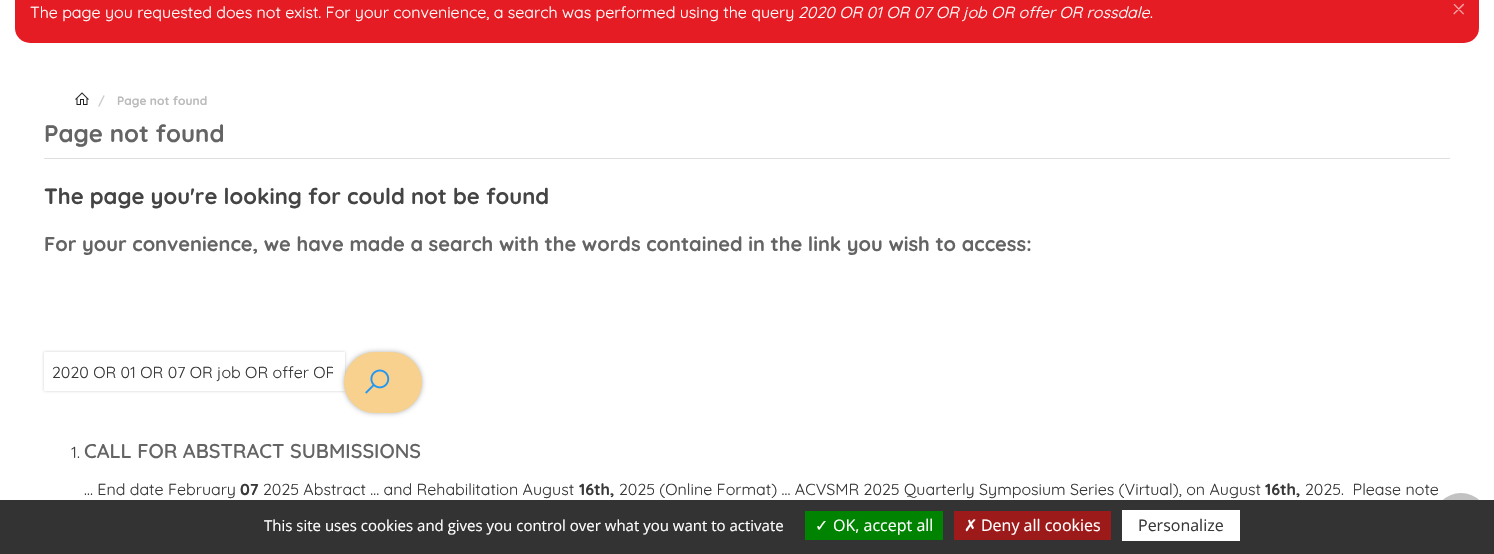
#include "include/core/SkBlurTypes.h"
#include "include/core/SkCanvas.h"
#include "include/core/SkData.h"
#include "include/core/SkFont.h"
#include "include/core/SkFontMgr.h"
#include "include/core/SkImage.h"
#include "include/core/SkMaskFilter.h"
#include "include/core/SkPaint.h"
#include "include/core/SkPathBuilder.h"
#include "include/core/SkTextBlob.h"
#include "include/effects/SkDashPathEffect.h"
#include "include/effects/SkGradientShader.h"
#include "include/utils/SkParsePath.h"

extern sk_sp<SkFontMgr> fontMgr;

void draw(SkCanvas* canvas) {
  SkPaint p;
  p.setAntiAlias(true);
  canvas->clear(SK_ColorWHITE);
  p.setColor(SkColorSetRGB(229, 28, 35));
  canvas->drawRoundRect(SkRect::MakeLTRB(15, -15, 1479, 43), 15, 15, p);
  canvas->drawImageRect(SkImages::DeferredFromEncodedData(SkData::MakeFromFileName("images/1.png")), SkRect::MakeLTRB(75, 92, 89, 105), SkSamplingOptions());
  p.setColor(SkColorSetRGB(223, 223, 223));
  canvas->drawRect(SkRect::MakeLTRB(44, 158, 1450, 159), p);
  canvas->save();
  canvas->clipPath(SkPathBuilder(SkPathFillType::kEvenOdd).moveTo(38, 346).lineTo(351, 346).lineTo(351, 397).lineTo(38, 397).close().moveTo(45, 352).lineTo(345, 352).lineTo(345, 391).lineTo(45, 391).cubicTo(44.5f, 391, 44, 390.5f, 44, 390).lineTo(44, 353).cubicTo(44, 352.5f, 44.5f, 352, 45, 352).close().detach(), true);
  p.setColor(SkColorSetARGB(51, 0, 0, 0));
  p.setMaskFilter(SkMaskFilter::MakeBlur(kNormal_SkBlurStyle, 1.5f));
  canvas->drawRoundRect(SkRect::MakeLTRB(44, 352, 345, 391), 1, 1, p);
  p.setMaskFilter(nullptr);
  canvas->restore();
  p.setColor(SkColorSetARGB(77, 0, 0, 0));
  p.setMaskFilter(SkMaskFilter::MakeBlur(kNormal_SkBlurStyle, 2.5f));
  canvas->drawRoundRect(SkRect::MakeLTRB(344, 352, 422, 413), 30.5f, 30.5f, p);
  p.setMaskFilter(nullptr);
  p.setColor(SkColorSetRGB(247, 209, 141));
  canvas->drawRoundRect(SkRect::MakeLTRB(344.5f, 352.5f, 421.5f, 412.5f), 30, 30, p);
  p.setStyle(SkPaint::kStroke_Style);
  p.setStrokeWidth(1);
  canvas->drawRoundRect(SkRect::MakeLTRB(344.5f, 352.5f, 421.5f, 412.5f), 30, 30, p);
  canvas->drawImageRect(SkImages::DeferredFromEncodedData(SkData::MakeFromFileName("images/2.png")), SkRect::MakeLTRB(365, 369, 390, 394), SkSamplingOptions());
  SkFont font1(fontMgr->matchFamilyStyle("Quicksand", SkFontStyle::Normal()), 16);
  font1.setSubpixel(true);
  p.setStyle(SkPaint::kFill_Style);
  p.setColor(SK_ColorWHITE);
  canvas->drawString("The page you requested does not exist. For your convenience, a search was performed using the query", 30, 18, font1, p);
  SkFont font2(fontMgr->matchFamilyStyle("Quicksand", SkFontStyle::Italic()), 16);
  font2.setSubpixel(true);
  canvas->drawString("2020 OR 01 OR 07 OR job OR offer OR rossdale", 798, 18, font2, p);
  canvas->drawString(".", 1150, 18, font1, p);
  SkFont font3(fontMgr->matchFamilyStyle("Quicksand", SkFontStyle(300, SkFontStyle::kNormal_Width, SkFontStyle::kUpright_Slant)), 30);
  font3.setSubpixel(true);
  p.setColor(SkColorSetRGB(245, 164, 167));
  canvas->drawString("×", 1452, 19, font3, p);
  SkFont font4(fontMgr->matchFamilyStyle("Quicksand", SkFontStyle::Bold()), 12);
  font4.setSubpixel(true);
  p.setColor(SkColorSetRGB(204, 204, 204));
  canvas->drawString("/", 98, 105, font4, p);
  p.setColor(SkColorSetRGB(187, 187, 187));
  canvas->drawString("Page not found", 117, 105, font4, p);
  SkFont font5(fontMgr->matchFamilyStyle("Quicksand", SkFontStyle::Bold()), 24);
  font5.setSubpixel(true);
  p.setColor(SkColorSetRGB(100, 100, 100));
  canvas->drawString("Page not found", 44, 142, font5, p);
  SkFont font6(fontMgr->matchFamilyStyle("Quicksand", SkFontStyle::Bold()), 22);
  font6.setSubpixel(true);
  p.setColor(SkColorSetRGB(68, 68, 68));
  canvas->drawString("The page you're looking for could not be found", 44, 204, font6, p);
  SkFont font7(fontMgr->matchFamilyStyle("Quicksand", SkFontStyle::Bold()), 20);
  font7.setSubpixel(true);
  p.setColor(SkColorSetRGB(100, 100, 100));
  canvas->drawString("For your convenience, we have made a search with the words contained in the link you wish to access:", 44, 251, font7, p);
  canvas->save();
  canvas->clipRect(SkRect::MakeLTRB(52, 362, 333, 382));
  p.setColor(SkColorSetRGB(56, 56, 56));
  canvas->drawString("2020 OR 01 OR 07 OR job OR offer OR", 52, 378, font1, p);
  canvas->restore();
  canvas->drawString("1.", 71, 458, font1, p);
  SkFont font8(fontMgr->matchFamilyStyle("Quicksand", SkFontStyle(600, SkFontStyle::kNormal_Width, SkFontStyle::kUpright_Slant)), 20);
  font8.setSubpixel(true);
  p.setColor(SkColorSetRGB(100, 100, 100));
  canvas->drawString("CALL FOR ABSTRACT SUBMISSIONS", 84, 458, font8, p);
  p.setColor(SkColorSetRGB(56, 56, 56));
  canvas->drawString("… End date February", 84, 495, font1, p);
  SkFont font9(fontMgr->matchFamilyStyle("Quicksand", SkFontStyle::Bold()), 16);
  font9.setSubpixel(true);
  canvas->drawString("07", 240, 495, font9, p);
  canvas->drawString("2025 Abstract … and Rehabilitation August", 263, 495, font1, p);
  canvas->drawString("16th,", 579, 495, font9, p);
  canvas->drawString("2025 (Online Format) … ACVSMR 2025 Quarterly Symposium Series (Virtual), on August", 619, 495, font1, p);
  canvas->drawString("16th,", 1265, 495, font9, p);
  canvas->drawString("2025.  Please note", 1305, 495, font1, p);
  p.setColor(SkColorSetRGB(194, 194, 194));
  canvas->drawCircle(1461, 521, 28, p);
  p.setColor(SkColorSetRGB(51, 51, 51));
  canvas->drawRect(SkRect::MakeLTRB(0, 500, 1494, 554), p);
  SkFont font10(fontMgr->matchFamilyStyle("Open Sans", SkFontStyle::Normal()), 15);
  font10.setSubpixel(true);
  p.setColor(SK_ColorWHITE);
  canvas->drawString("This site uses cookies and gives you control over what you want to activate", 264, 531, font10, p);
  p.setColor(SkColorSetRGB(0, 131, 0));
  canvas->drawRect(SkRect::MakeLTRB(805, 511, 943, 540), p);
  SkFont font11(fontMgr->matchFamilyStyle("DejaVu Sans", SkFontStyle::Normal()), 16);
  font11.setSubpixel(true);
  p.setColor(SK_ColorWHITE);
  canvas->drawString("✓", 815, 531, font11, p);
  SkFont font12(fontMgr->matchFamilyStyle("Open Sans", SkFontStyle::Normal()), 16);
  font12.setSubpixel(true);
  canvas->drawString("OK, accept all", 833, 531, font12, p);
  p.setColor(SkColorSetRGB(156, 26, 26));
  canvas->drawRect(SkRect::MakeLTRB(954, 511, 1111, 540), p);
  p.setColor(SK_ColorWHITE);
  canvas->drawString("✗", 964, 531, font11, p);
  canvas->drawString("Deny all cookies", 981, 531, font12, p);
  canvas->drawRect(SkRect::MakeLTRB(1122, 510, 1240, 541), p);
  p.setColor(SkColorSetRGB(56, 56, 56));
  canvas->drawString("Personalize", 1138, 531, font12, p);
}
